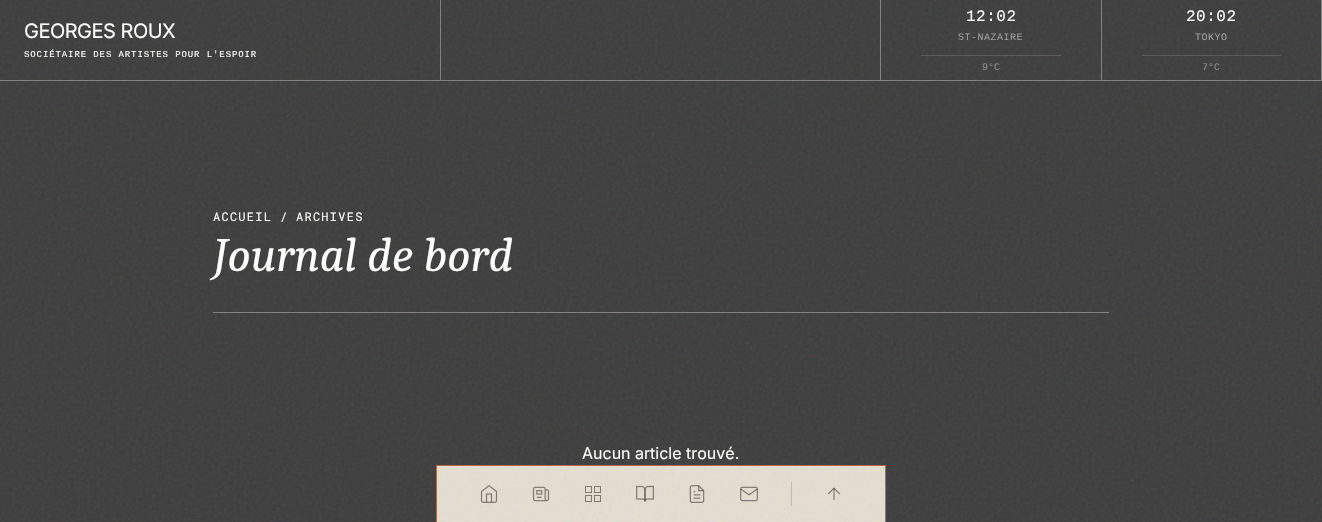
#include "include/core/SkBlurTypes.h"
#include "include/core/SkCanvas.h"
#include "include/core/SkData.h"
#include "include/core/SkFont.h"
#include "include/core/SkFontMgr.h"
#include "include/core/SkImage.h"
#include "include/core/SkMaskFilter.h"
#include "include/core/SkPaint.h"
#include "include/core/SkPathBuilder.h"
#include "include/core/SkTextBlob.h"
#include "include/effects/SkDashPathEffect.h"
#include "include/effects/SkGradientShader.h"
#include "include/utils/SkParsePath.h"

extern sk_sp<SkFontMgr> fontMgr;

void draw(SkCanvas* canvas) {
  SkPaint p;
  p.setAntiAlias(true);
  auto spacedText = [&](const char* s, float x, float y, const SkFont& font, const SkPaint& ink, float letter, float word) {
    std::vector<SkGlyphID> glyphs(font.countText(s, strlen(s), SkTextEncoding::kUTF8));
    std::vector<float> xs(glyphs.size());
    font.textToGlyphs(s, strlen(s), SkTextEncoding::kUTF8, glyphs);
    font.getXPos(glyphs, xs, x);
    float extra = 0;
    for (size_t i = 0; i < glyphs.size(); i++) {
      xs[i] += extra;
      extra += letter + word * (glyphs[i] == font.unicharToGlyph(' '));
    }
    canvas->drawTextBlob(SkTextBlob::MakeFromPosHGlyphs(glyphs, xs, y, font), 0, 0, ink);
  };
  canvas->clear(SkColorSetRGB(60, 60, 60));
  p.setColor(SkColorSetRGB(129, 128, 128));
  canvas->drawRect(SkRect::MakeLTRB(0, 80, 1322, 81), p);
  canvas->drawRect(SkRect::MakeLTRB(440, 0, 441, 80), p);
  canvas->drawRect(SkRect::MakeLTRB(880, 0, 881, 80), p);
  canvas->drawRect(SkRect::MakeLTRB(1101, 0, 1102, 80), p);
  p.setColor(SkColorSetRGB(88, 88, 87));
  canvas->drawRect(SkRect::MakeLTRB(921, 55, 1061, 56), p);
  p.setColor(SkColorSetRGB(129, 128, 128));
  canvas->drawRect(SkRect::MakeLTRB(1321, 0, 1322, 80), p);
  p.setColor(SkColorSetRGB(88, 88, 87));
  canvas->drawRect(SkRect::MakeLTRB(1142, 55, 1281, 56), p);
  p.setColor(SkColorSetRGB(129, 128, 128));
  canvas->drawRect(SkRect::MakeLTRB(213, 312, 1109, 313), p);
  p.setColor(SkColorSetRGB(228, 222, 209));
  canvas->drawRect(SkRect::MakeLTRB(437, 466, 885, 522), p);
  p.setColor(SkColorSetRGB(180, 101, 76));
  canvas->drawRect(SkRect::MakeLTRB(436, 465, 886, 466), p);
  canvas->drawRect(SkRect::MakeLTRB(885, 465, 886, 522), p);
  canvas->drawRect(SkRect::MakeLTRB(436, 465, 437, 522), p);
  canvas->drawImageRect(SkImages::DeferredFromEncodedData(SkData::MakeFromFileName("images/2.png")), SkRect::MakeLTRB(480, 485, 498, 503), SkSamplingOptions());
  canvas->drawImageRect(SkImages::DeferredFromEncodedData(SkData::MakeFromFileName("images/3.png")), SkRect::MakeLTRB(532, 486, 550, 502), SkSamplingOptions());
  canvas->drawImageRect(SkImages::DeferredFromEncodedData(SkData::MakeFromFileName("images/4.png")), SkRect::MakeLTRB(585, 486, 601, 502), SkSamplingOptions());
  canvas->drawImageRect(SkImages::DeferredFromEncodedData(SkData::MakeFromFileName("images/5.png")), SkRect::MakeLTRB(636, 485, 654, 502), SkSamplingOptions());
  canvas->drawImageRect(SkImages::DeferredFromEncodedData(SkData::MakeFromFileName("images/6.png")), SkRect::MakeLTRB(689, 485, 705, 503), SkSamplingOptions());
  canvas->drawImageRect(SkImages::DeferredFromEncodedData(SkData::MakeFromFileName("images/7.png")), SkRect::MakeLTRB(740, 486, 758, 502), SkSamplingOptions());
  p.setColor(SkColorSetRGB(193, 187, 176));
  canvas->drawRect(SkRect::MakeLTRB(791, 482, 792, 506), p);
  canvas->drawImageRect(SkImages::DeferredFromEncodedData(SkData::MakeFromFileName("images/8.png")), SkRect::MakeLTRB(827, 487, 841, 500), SkSamplingOptions());
  SkFont font1(fontMgr->matchFamilyStyle("Inter", SkFontStyle::Normal()), 20);
  font1.setSubpixel(true);
  p.setColor(SkColorSetRGB(255, 255, 254));
  spacedText("GEORGES ROUX", 24, 38, font1, p, -0.5f, 0);
  SkFont font2(fontMgr->matchFamilyStyle("Liberation Mono", SkFontStyle::Normal()), 9);
  font2.setSubpixel(true);
  spacedText("SOCIÉTAIRE DES ARTISTES POUR L'ESPOIR", 24, 57, font2, p, 0.9f, 0);
  SkFont font3(fontMgr->matchFamilyStyle("Liberation Mono", SkFontStyle::Normal()), 16);
  font3.setSubpixel(true);
  spacedText("12:02", 966, 21, font3, p, 0.5f, 0);
  SkFont font4(fontMgr->matchFamilyStyle("Liberation Mono", SkFontStyle::Normal()), 10);
  font4.setSubpixel(true);
  p.setColor(SkColorSetRGB(158, 158, 157));
  spacedText("ST-NAZAIRE", 958, 40, font4, p, 0.5f, 0);
  p.setColor(SkColorSetRGB(138, 138, 137));
  canvas->drawString("9°C", 982, 70, font4, p);
  p.setColor(SkColorSetRGB(255, 255, 254));
  spacedText("20:02", 1186, 21, font3, p, 0.5f, 0);
  p.setColor(SkColorSetRGB(158, 158, 157));
  spacedText("TOKYO", 1195, 40, font4, p, 0.5f, 0);
  p.setColor(SkColorSetRGB(138, 138, 137));
  canvas->drawString("7°C", 1202, 70, font4, p);
  SkFont font5(fontMgr->matchFamilyStyle("Roboto Mono", SkFontStyle::Normal()), 12);
  font5.setSubpixel(true);
  p.setColor(SkColorSetRGB(255, 255, 254));
  spacedText("ACCUEIL", 213, 221, font5, p, 1.25f, 0);
  spacedText("/", 280, 221, font5, p, 1.25f, 0);
  spacedText("ARCHIVES", 296, 221, font5, p, 1.25f, 0);
  SkFont font6(fontMgr->matchFamilyStyle("Caladea", SkFontStyle::Italic()), 48);
  font6.setSubpixel(true);
  canvas->drawString("Journal de bord", 213, 271, font6, p);
  SkFont font7(fontMgr->matchFamilyStyle("Inter", SkFontStyle::Normal()), 16);
  font7.setSubpixel(true);
  canvas->drawString("Aucun article trouvé.", 582, 459, font7, p);
  canvas->drawImageRect(SkImages::DeferredFromEncodedData(SkData::MakeFromFileName("images/1.png")), SkRect::MakeLTRB(0, 0, 1322, 522), SkSamplingOptions());
}
